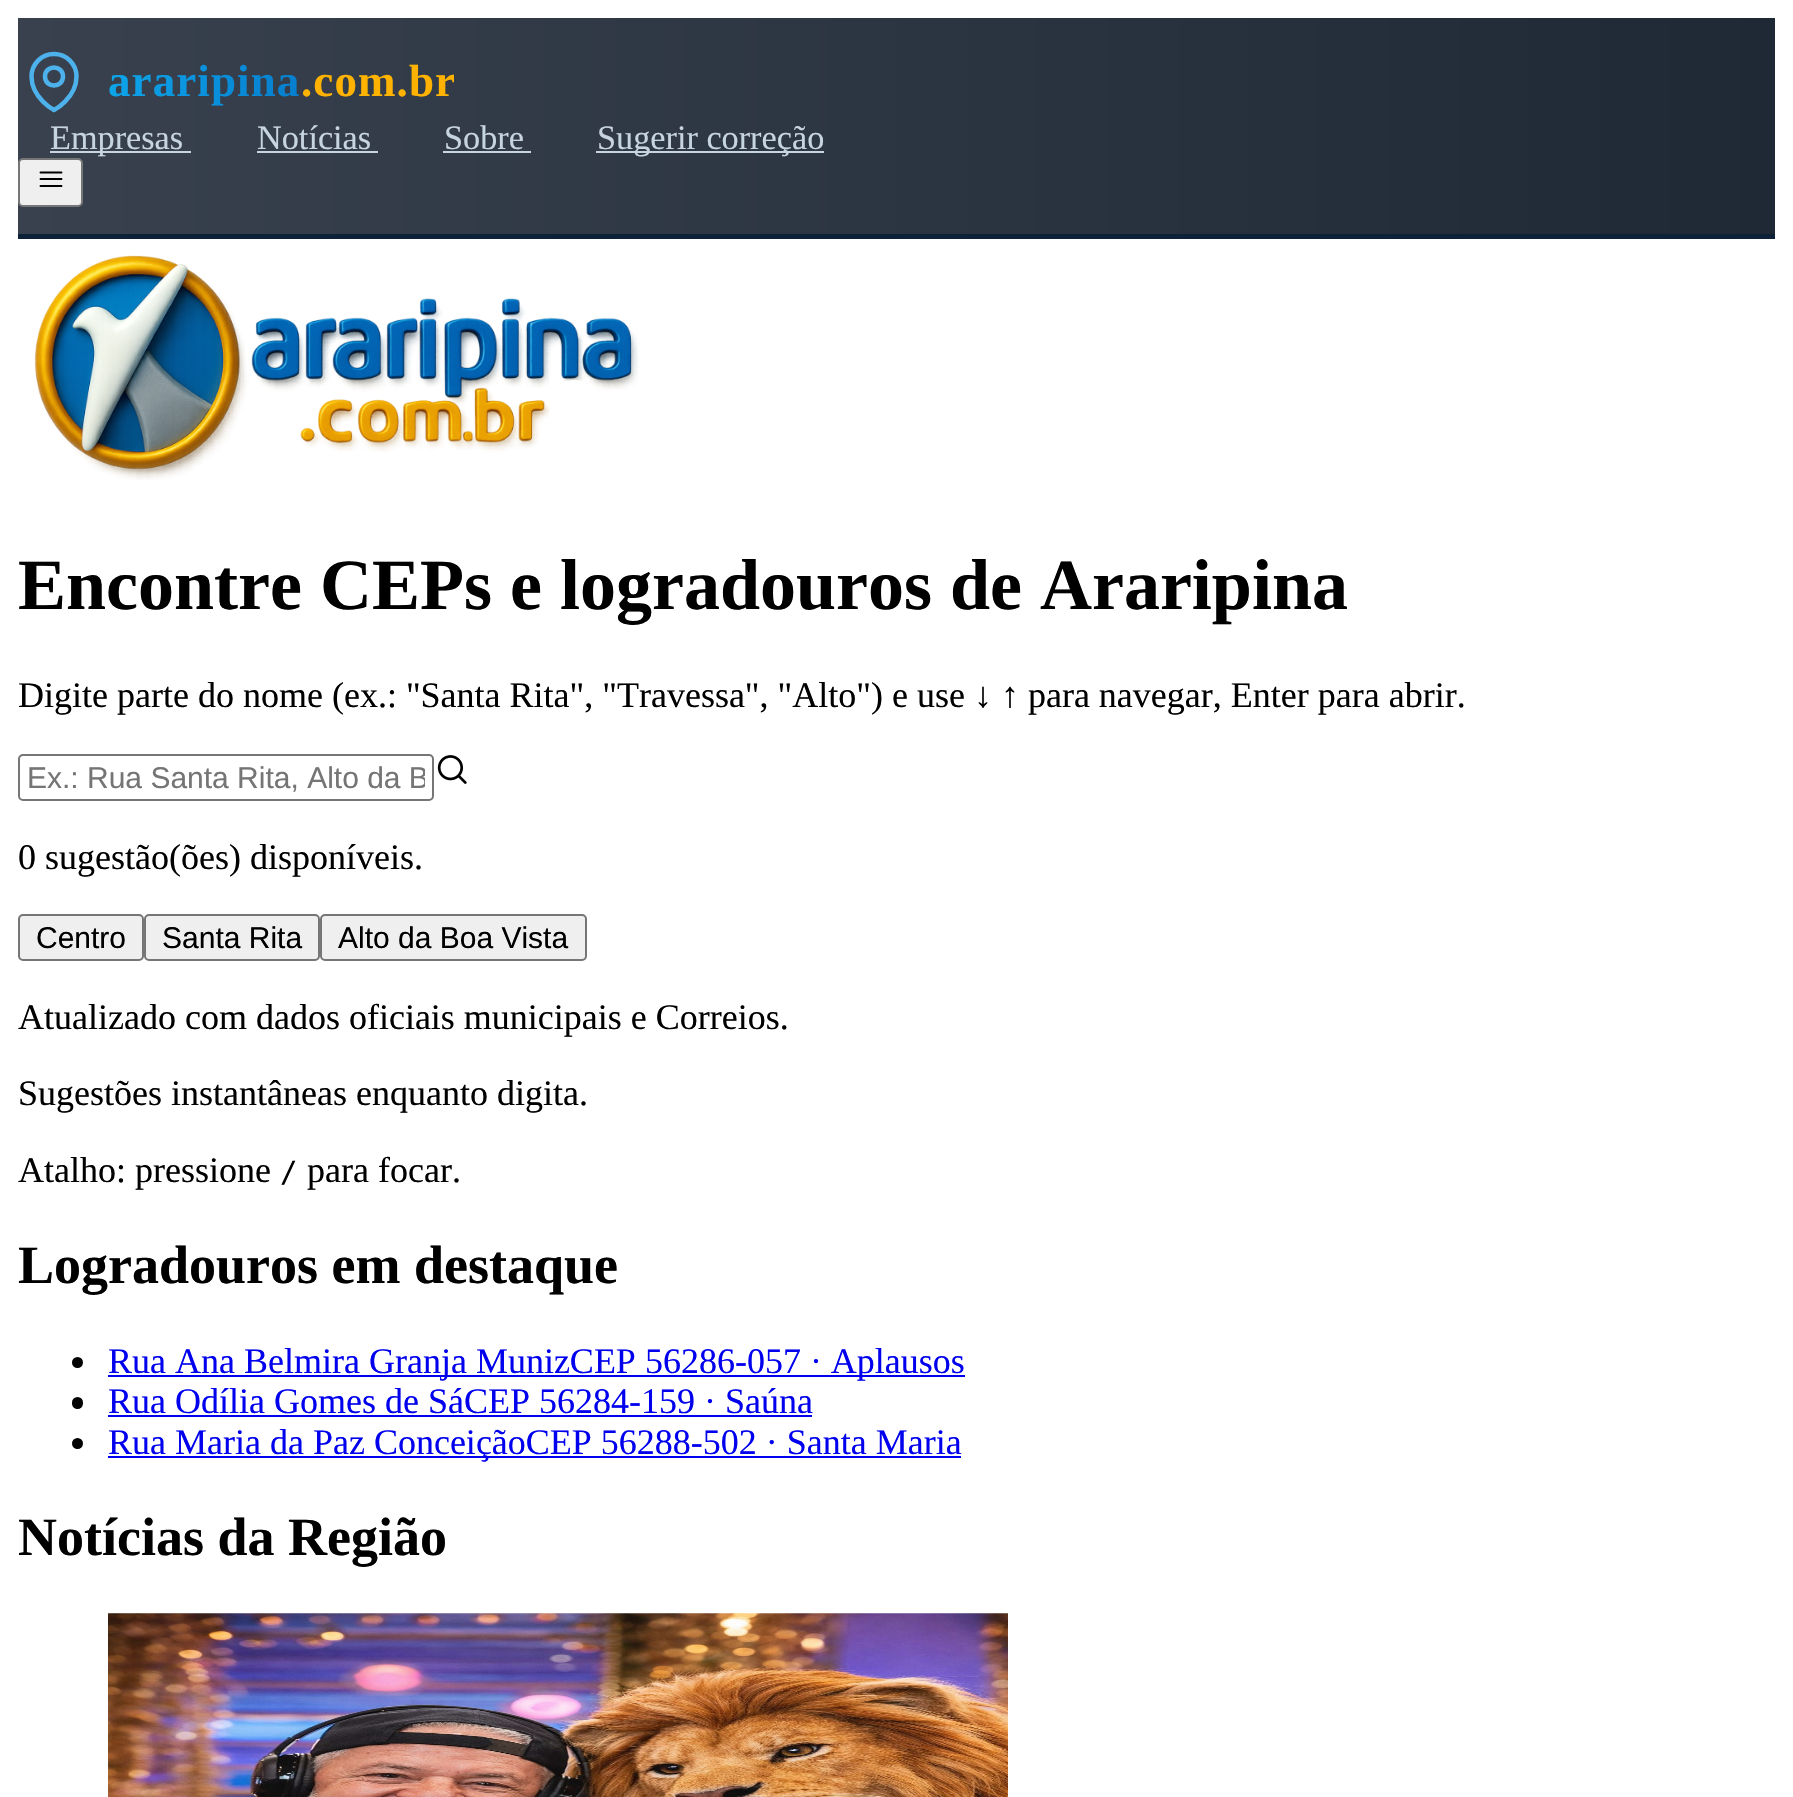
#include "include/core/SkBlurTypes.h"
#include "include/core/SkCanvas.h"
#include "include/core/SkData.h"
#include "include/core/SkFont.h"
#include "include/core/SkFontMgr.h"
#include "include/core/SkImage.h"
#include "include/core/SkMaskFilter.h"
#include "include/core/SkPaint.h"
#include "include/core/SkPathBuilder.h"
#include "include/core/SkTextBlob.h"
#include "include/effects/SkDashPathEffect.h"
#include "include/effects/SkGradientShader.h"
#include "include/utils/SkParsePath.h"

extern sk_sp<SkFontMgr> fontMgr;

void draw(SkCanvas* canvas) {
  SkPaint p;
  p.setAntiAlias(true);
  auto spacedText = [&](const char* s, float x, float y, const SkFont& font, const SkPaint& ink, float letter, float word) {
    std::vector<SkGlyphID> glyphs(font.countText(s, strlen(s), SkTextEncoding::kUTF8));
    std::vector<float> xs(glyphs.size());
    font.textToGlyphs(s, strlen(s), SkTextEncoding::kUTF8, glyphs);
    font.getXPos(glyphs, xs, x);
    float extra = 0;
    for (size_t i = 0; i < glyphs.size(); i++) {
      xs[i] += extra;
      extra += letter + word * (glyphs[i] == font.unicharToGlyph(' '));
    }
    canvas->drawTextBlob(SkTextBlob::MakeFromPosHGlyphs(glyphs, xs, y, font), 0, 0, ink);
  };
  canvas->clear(SK_ColorWHITE);
  {
    const SkColor colors[] = {SkColorSetRGB(56, 65, 77), SkColorSetRGB(31, 41, 54)};
    const float stops[] = {0, 1};
    const SkPoint ends[] = {{18, 126}, {1775, 126}};
    p.setShader(SkGradientShader::MakeLinear(ends, colors, stops, 2, SkTileMode::kClamp));
    p.setAlpha(255);
  }
  canvas->drawRect(SkRect::MakeLTRB(18, 18, 1775, 234), p);
  p.setShader(nullptr);
  p.setColor(SkColorSetRGB(13, 34, 56));
  canvas->drawRect(SkRect::MakeLTRB(18, 234, 1775, 239), p);
  p.setStyle(SkPaint::kStroke_Style);
  p.setStrokeWidth(4.5f);
  p.setStrokeCap(SkPaint::kRound_Cap);
  p.setStrokeJoin(SkPaint::kRound_Join);
  p.setColor(SkColorSetRGB(77, 177, 236));
  canvas->drawPath(SkPathBuilder().moveTo(63, 76.5f).cubicTo(63, 88.5f, 45, 88.5f, 45, 76.5f).cubicTo(45, 64.5f, 63, 64.5f, 63, 76.5f).moveTo(76.5f, 76.5f).cubicTo(76.5f, 98, 54, 110, 54, 110).cubicTo(54, 110, 31.5f, 98, 31.5f, 76.5f).cubicTo(31.5f, 64, 41.5f, 54, 54, 54).cubicTo(66.5f, 54, 76.5f, 64, 76.5f, 76.5f).detach(), p);
  p.setStyle(SkPaint::kFill_Style);
  p.setColor(SkColorSetRGB(199, 213, 225));
  canvas->drawRect(SkRect::MakeLTRB(50, 151, 191, 153), p);
  canvas->drawRect(SkRect::MakeLTRB(257, 151, 378, 153), p);
  canvas->drawRect(SkRect::MakeLTRB(443, 151, 531, 153), p);
  canvas->drawRect(SkRect::MakeLTRB(596, 151, 824, 153), p);
  p.setColor(SkColorSetRGB(239, 239, 239));
  canvas->drawRoundRect(SkRect::MakeLTRB(19, 159, 82, 206), 4, 4, p);
  p.setStyle(SkPaint::kStroke_Style);
  p.setStrokeWidth(2);
  p.setStrokeCap(SkPaint::kButt_Cap);
  p.setStrokeJoin(SkPaint::kMiter_Join);
  p.setColor(SkColorSetRGB(118, 118, 118));
  canvas->drawRoundRect(SkRect::MakeLTRB(19, 159, 82, 206), 4, 4, p);
  p.setStrokeWidth(1.9f);
  p.setStrokeCap(SkPaint::kRound_Cap);
  p.setStrokeJoin(SkPaint::kRound_Join);
  p.setColor(SK_ColorBLACK);
  canvas->drawPath(SkPathBuilder().moveTo(40.5f, 172.5f).lineTo(61.5f, 172.5f).moveTo(40.5f, 179).lineTo(61.5f, 179).moveTo(40.5f, 186).lineTo(61.5f, 186).detach(), p);
  canvas->drawImageRect(SkImages::DeferredFromEncodedData(SkData::MakeFromFileName("images/1.png")), SkRect::MakeLTRB(34, 255, 639, 480), SkSamplingOptions());
  p.setStrokeWidth(2);
  p.setStrokeCap(SkPaint::kButt_Cap);
  p.setStrokeJoin(SkPaint::kMiter_Join);
  p.setColor(SkColorSetRGB(118, 118, 118));
  canvas->drawRoundRect(SkRect::MakeLTRB(19, 755, 433, 800), 4, 4, p);
  canvas->drawImageRect(SkImages::DeferredFromEncodedData(SkData::MakeFromFileName("images/2.png")), SkRect::MakeLTRB(437, 755, 467, 784), SkSamplingOptions());
  p.setStyle(SkPaint::kFill_Style);
  p.setColor(SkColorSetRGB(239, 239, 239));
  canvas->drawRoundRect(SkRect::MakeLTRB(19, 915, 143, 960), 4, 4, p);
  p.setStyle(SkPaint::kStroke_Style);
  p.setColor(SkColorSetRGB(118, 118, 118));
  canvas->drawRoundRect(SkRect::MakeLTRB(19, 915, 143, 960), 4, 4, p);
  p.setStyle(SkPaint::kFill_Style);
  p.setColor(SkColorSetRGB(239, 239, 239));
  canvas->drawRoundRect(SkRect::MakeLTRB(145, 915, 319, 960), 4, 4, p);
  p.setStyle(SkPaint::kStroke_Style);
  p.setColor(SkColorSetRGB(118, 118, 118));
  canvas->drawRoundRect(SkRect::MakeLTRB(145, 915, 319, 960), 4, 4, p);
  p.setStyle(SkPaint::kFill_Style);
  p.setColor(SkColorSetRGB(239, 239, 239));
  canvas->drawRoundRect(SkRect::MakeLTRB(321, 915, 586, 960), 4, 4, p);
  p.setStyle(SkPaint::kStroke_Style);
  p.setColor(SkColorSetRGB(118, 118, 118));
  canvas->drawRoundRect(SkRect::MakeLTRB(321, 915, 586, 960), 4, 4, p);
  p.setStyle(SkPaint::kFill_Style);
  p.setColor(SK_ColorBLACK);
  canvas->drawCircle(77.5f, 1362.5f, 5.5f, p);
  p.setColor(SkColorSetRGB(0, 0, 238));
  canvas->drawRect(SkRect::MakeLTRB(108, 1375, 965, 1377), p);
  p.setColor(SK_ColorBLACK);
  canvas->drawRoundRect(SkRect::MakeLTRB(72, 1397, 83, 1409), 5.5f, 5.5f, p);
  p.setColor(SkColorSetRGB(0, 0, 238));
  canvas->drawRect(SkRect::MakeLTRB(108, 1415, 812, 1417), p);
  p.setColor(SK_ColorBLACK);
  canvas->drawCircle(77.5f, 1443.5f, 5.5f, p);
  p.setColor(SkColorSetRGB(0, 0, 238));
  canvas->drawRect(SkRect::MakeLTRB(108, 1456, 961, 1458), p);
  canvas->drawImageRect(SkImages::DeferredFromEncodedData(SkData::MakeFromFileName("images/3.png")), SkRect::MakeLTRB(108, 1613, 1008, 1797), SkSamplingOptions());
  SkFont font1(fontMgr->matchFamilyStyle("Liberation Serif", SkFontStyle::Bold()), 45);
  font1.setSubpixel(true);
  {
    const SkColor colors[] = {SkColorSetRGB(14, 165, 233), SkColorSetRGB(0, 94, 184)};
    const float stops[] = {0, 1};
    const SkPoint ends[] = {{108, 81}, {456, 81}};
    p.setShader(SkGradientShader::MakeLinear(ends, colors, stops, 2, SkTileMode::kClamp));
    p.setAlpha(255);
  }
  spacedText("araripina", 108, 96, font1, p, 1.1f, 0);
  p.setShader(nullptr);
  p.setColor(SkColorSetRGB(255, 179, 0));
  spacedText(".com.br", 301, 96, font1, p, 1.1f, 0);
  SkFont font2(fontMgr->matchFamilyStyle("Liberation Serif", SkFontStyle::Normal()), 34.25f);
  font2.setSubpixel(true);
  p.setColor(SkColorSetRGB(199, 213, 225));
  canvas->drawString("Empresas", 50, 149, font2, p);
  canvas->drawString("Notícias", 257, 149, font2, p);
  canvas->drawString("Sobre", 444, 149, font2, p);
  canvas->drawString("Sugerir correção", 597, 149, font2, p);
  SkFont font3(fontMgr->matchFamilyStyle("Liberation Serif", SkFontStyle::Bold()), 72);
  font3.setSubpixel(true);
  p.setColor(SK_ColorBLACK);
  canvas->drawString("Encontre CEPs e logradouros de Araripina", 18, 609, font3, p);
  SkFont font4(fontMgr->matchFamilyStyle("Liberation Serif", SkFontStyle::Normal()), 36);
  font4.setSubpixel(true);
  canvas->drawString("Digite parte do nome (ex.: \"Santa Rita\", \"Travessa\", \"Alto\") e use ↓ ↑ para navegar, Enter para abrir.", 18, 707, font4, p);
  canvas->save();
  canvas->clipRect(SkRect::MakeLTRB(27, 761, 425, 794));
  SkFont font5(fontMgr->matchFamilyStyle("Liberation Sans", SkFontStyle::Normal()), 30);
  font5.setSubpixel(true);
  p.setColor(SkColorSetRGB(117, 117, 117));
  canvas->drawString("Ex.: Rua Santa Rita, Alto da B", 27, 788, font5, p);
  canvas->restore();
  p.setColor(SK_ColorBLACK);
  canvas->drawString("0 sugestão(ões) disponíveis.", 18, 869, font4, p);
  canvas->drawString("Centro", 36, 948, font5, p);
  canvas->drawString("Santa Rita", 162, 948, font5, p);
  canvas->drawString("Alto da Boa Vista", 338, 948, font5, p);
  canvas->drawString("Atualizado com dados oficiais municipais e Correios.", 18, 1029, font4, p);
  canvas->drawString("Sugestões instantâneas enquanto digita.", 18, 1105, font4, p);
  canvas->drawString("Atalho: pressione", 18, 1182, font4, p);
  SkFont font6(fontMgr->matchFamilyStyle("DejaVu Sans Mono", SkFontStyle::Normal()), 29);
  font6.setSubpixel(true);
  canvas->drawString("/", 280, 1182, font6, p);
  canvas->drawString("para focar.", 307, 1182, font4, p);
  SkFont font7(fontMgr->matchFamilyStyle("Liberation Serif", SkFontStyle::Bold()), 54);
  font7.setSubpixel(true);
  canvas->drawString("Logradouros em destaque", 18, 1283, font7, p);
  p.setColor(SkColorSetRGB(0, 0, 238));
  canvas->drawString("Rua Ana Belmira Granja MunizCEP 56286-057 · Aplausos", 108, 1373, font4, p);
  canvas->drawString("Rua Odília Gomes de SáCEP 56284-159 · Saúna", 108, 1413, font4, p);
  canvas->drawString("Rua Maria da Paz ConceiçãoCEP 56288-502 · Santa Maria", 108, 1454, font4, p);
  p.setColor(SK_ColorBLACK);
  canvas->drawString("Notícias da Região", 18, 1555, font7, p);
}
